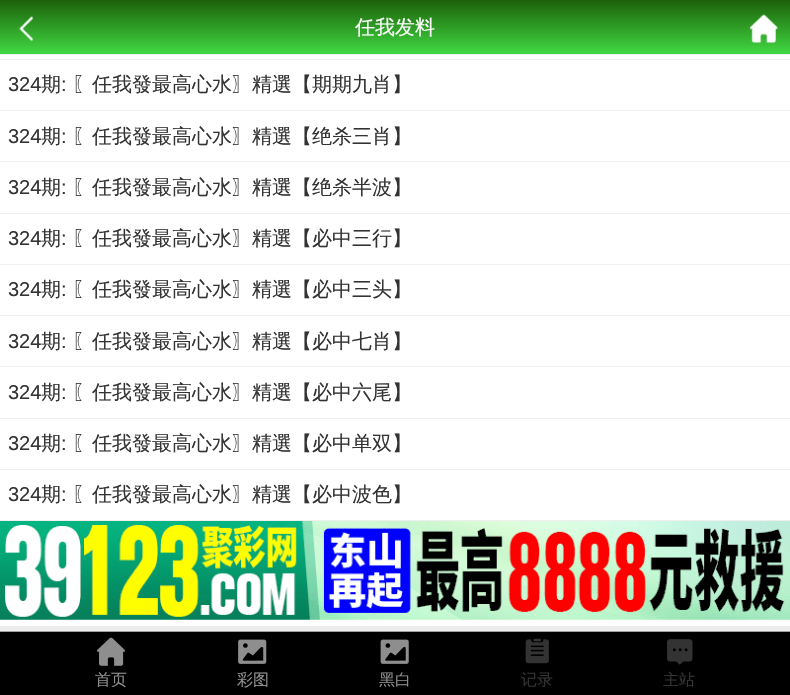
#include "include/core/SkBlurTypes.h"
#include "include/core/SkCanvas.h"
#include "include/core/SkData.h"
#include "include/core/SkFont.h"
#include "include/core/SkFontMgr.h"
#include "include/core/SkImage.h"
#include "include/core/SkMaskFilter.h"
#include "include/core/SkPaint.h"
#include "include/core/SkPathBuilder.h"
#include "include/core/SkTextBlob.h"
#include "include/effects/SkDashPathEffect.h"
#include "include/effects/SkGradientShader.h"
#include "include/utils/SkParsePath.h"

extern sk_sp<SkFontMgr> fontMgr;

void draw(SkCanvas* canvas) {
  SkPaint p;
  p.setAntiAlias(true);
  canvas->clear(SkColorSetRGB(236, 236, 236));
  {
    const SkColor colors[] = {SkColorSetRGB(65, 216, 67), SkColorSetRGB(28, 97, 9)};
    const float stops[] = {0, 1};
    const SkPoint ends[] = {{395, 54}, {395, 0}};
    p.setShader(SkGradientShader::MakeLinear(ends, colors, stops, 2, SkTileMode::kClamp));
    p.setAlpha(255);
  }
  canvas->drawRect(SkRect::MakeLTRB(0, 0, 790, 54), p);
  p.setShader(nullptr);
  p.setColor(SkColorSetRGB(239, 239, 239));
  canvas->drawRect(SkRect::MakeLTRB(0, 54, 790, 55), p);
  canvas->drawImageRect(SkImages::DeferredFromEncodedData(SkData::MakeFromFileName("images/1.png")), SkRect::MakeLTRB(19, 16, 34, 42), SkSamplingOptions());
  canvas->drawImageRect(SkImages::DeferredFromEncodedData(SkData::MakeFromFileName("images/2.png")), SkRect::MakeLTRB(750, 14, 778, 43), SkSamplingOptions());
  p.setColor(SK_ColorWHITE);
  canvas->drawRect(SkRect::MakeLTRB(0, 55, 790, 626), p);
  p.setColor(SkColorSetRGB(239, 239, 239));
  canvas->drawRect(SkRect::MakeLTRB(0, 59, 790, 60), p);
  canvas->drawRect(SkRect::MakeLTRB(0, 110, 790, 111), p);
  canvas->drawRect(SkRect::MakeLTRB(0, 161, 790, 162), p);
  canvas->drawRect(SkRect::MakeLTRB(0, 213, 790, 214), p);
  canvas->drawRect(SkRect::MakeLTRB(0, 264, 790, 265), p);
  canvas->drawRect(SkRect::MakeLTRB(0, 315, 790, 316), p);
  canvas->drawRect(SkRect::MakeLTRB(0, 366, 790, 367), p);
  canvas->drawRect(SkRect::MakeLTRB(0, 418, 790, 419), p);
  canvas->drawRect(SkRect::MakeLTRB(0, 469, 790, 470), p);
  canvas->drawRect(SkRect::MakeLTRB(0, 520, 790, 521), p);
  canvas->drawImageRect(SkImages::DeferredFromEncodedData(SkData::MakeFromFileName("images/3.png")), SkRect::MakeLTRB(0, 521, 790, 620), SkSamplingOptions());
  p.setColor(SK_ColorBLACK);
  canvas->drawRect(SkRect::MakeLTRB(0, 632, 790, 695), p);
  p.setColor(SkColorSetRGB(159, 159, 159));
  canvas->drawRect(SkRect::MakeLTRB(0, 631, 790, 632), p);
  canvas->drawImageRect(SkImages::DeferredFromEncodedData(SkData::MakeFromFileName("images/4.png")), SkRect::MakeLTRB(97, 637, 125, 666), SkSamplingOptions());
  canvas->drawImageRect(SkImages::DeferredFromEncodedData(SkData::MakeFromFileName("images/5.png")), SkRect::MakeLTRB(238, 639, 267, 664), SkSamplingOptions());
  canvas->drawImageRect(SkImages::DeferredFromEncodedData(SkData::MakeFromFileName("images/6.png")), SkRect::MakeLTRB(380, 639, 409, 664), SkSamplingOptions());
  canvas->drawImageRect(SkImages::DeferredFromEncodedData(SkData::MakeFromFileName("images/7.png")), SkRect::MakeLTRB(525, 638, 549, 664), SkSamplingOptions());
  canvas->drawImageRect(SkImages::DeferredFromEncodedData(SkData::MakeFromFileName("images/8.png")), SkRect::MakeLTRB(667, 639, 693, 665), SkSamplingOptions());
  SkFont font1(fontMgr->matchFamilyStyle("WenQuanYi Zen Hei", SkFontStyle(500, SkFontStyle::kNormal_Width, SkFontStyle::kUpright_Slant)), 20);
  font1.setSubpixel(true);
  p.setColor(SK_ColorWHITE);
  canvas->drawString("任我发料", 355, 34, font1, p);
  SkFont font2(fontMgr->matchFamilyStyle("Liberation Sans", SkFontStyle::Normal()), 20);
  font2.setSubpixel(true);
  p.setColor(SkColorSetRGB(51, 51, 51));
  canvas->drawString("324", 8, 91, font2, p);
  canvas->drawString("期", 41, 91, font1, p);
  canvas->drawString(":", 61, 91, font2, p);
  canvas->drawString("〖任我發最高心水〗精選【期期九肖】", 72, 91, font1, p);
  canvas->drawString("324", 8, 143, font2, p);
  canvas->drawString("期", 41, 143, font1, p);
  canvas->drawString(":", 61, 143, font2, p);
  canvas->drawString("〖任我發最高心水〗精選【绝杀三肖】", 72, 143, font1, p);
  canvas->drawString("324", 8, 194, font2, p);
  canvas->drawString("期", 41, 194, font1, p);
  canvas->drawString(":", 61, 194, font2, p);
  canvas->drawString("〖任我發最高心水〗精選【绝杀半波】", 72, 194, font1, p);
  canvas->drawString("324", 8, 245, font2, p);
  canvas->drawString("期", 41, 245, font1, p);
  canvas->drawString(":", 61, 245, font2, p);
  canvas->drawString("〖任我發最高心水〗精選【必中三行】", 72, 245, font1, p);
  canvas->drawString("324", 8, 296, font2, p);
  canvas->drawString("期", 41, 296, font1, p);
  canvas->drawString(":", 61, 296, font2, p);
  canvas->drawString("〖任我發最高心水〗精選【必中三头】", 72, 296, font1, p);
  canvas->drawString("324", 8, 348, font2, p);
  canvas->drawString("期", 41, 348, font1, p);
  canvas->drawString(":", 61, 348, font2, p);
  canvas->drawString("〖任我發最高心水〗精選【必中七肖】", 72, 348, font1, p);
  canvas->drawString("324", 8, 399, font2, p);
  canvas->drawString("期", 41, 399, font1, p);
  canvas->drawString(":", 61, 399, font2, p);
  canvas->drawString("〖任我發最高心水〗精選【必中六尾】", 72, 399, font1, p);
  canvas->drawString("324", 8, 450, font2, p);
  canvas->drawString("期", 41, 450, font1, p);
  canvas->drawString(":", 61, 450, font2, p);
  canvas->drawString("〖任我發最高心水〗精選【必中单双】", 72, 450, font1, p);
  canvas->drawString("324", 8, 501, font2, p);
  canvas->drawString("期", 41, 501, font1, p);
  canvas->drawString(":", 61, 501, font2, p);
  canvas->drawString("〖任我發最高心水〗精選【必中波色】", 72, 501, font1, p);
  SkFont font3(fontMgr->matchFamilyStyle("WenQuanYi Zen Hei", SkFontStyle(500, SkFontStyle::kNormal_Width, SkFontStyle::kUpright_Slant)), 16);
  font3.setSubpixel(true);
  p.setColor(SkColorSetRGB(142, 142, 142));
  canvas->drawString("首页", 95, 685, font3, p);
  canvas->drawString("彩图", 237, 685, font3, p);
  canvas->drawString("黑白", 379, 685, font3, p);
  p.setColor(SkColorSetRGB(51, 51, 51));
  canvas->drawString("记录", 521, 685, font3, p);
  canvas->drawString("主站", 663, 685, font3, p);
}
